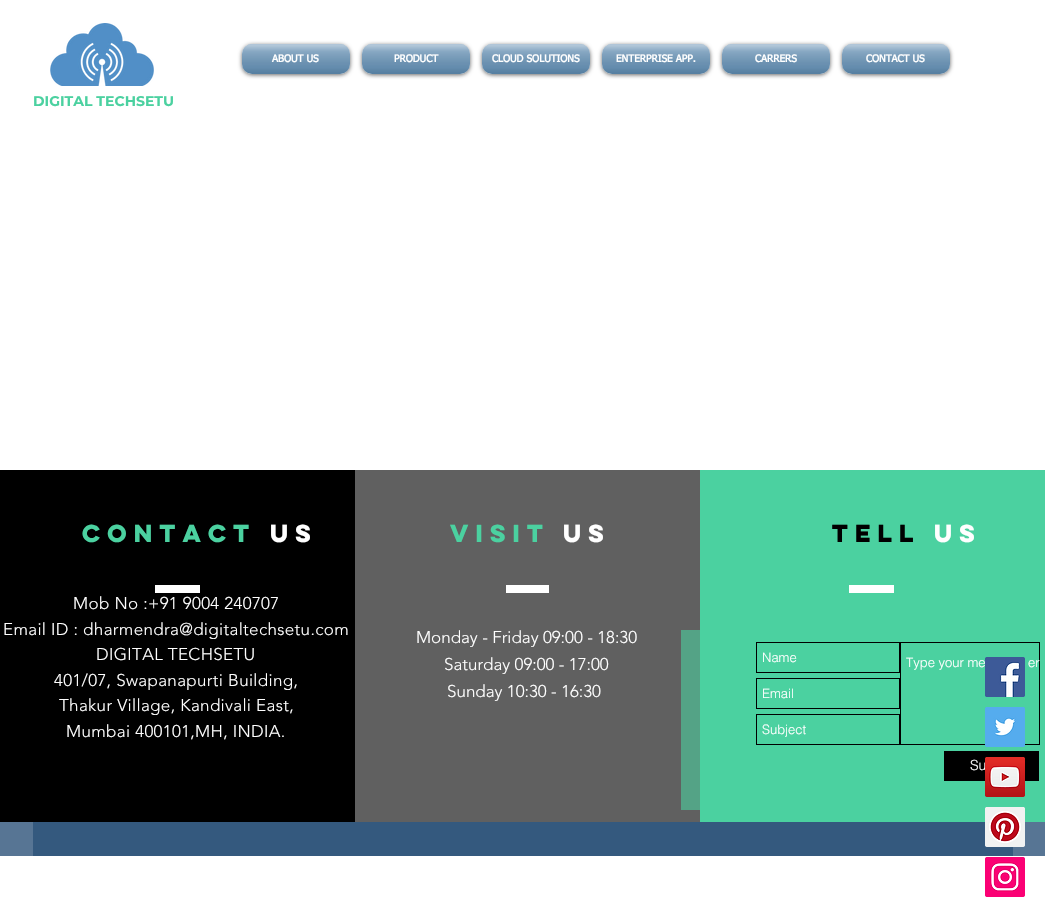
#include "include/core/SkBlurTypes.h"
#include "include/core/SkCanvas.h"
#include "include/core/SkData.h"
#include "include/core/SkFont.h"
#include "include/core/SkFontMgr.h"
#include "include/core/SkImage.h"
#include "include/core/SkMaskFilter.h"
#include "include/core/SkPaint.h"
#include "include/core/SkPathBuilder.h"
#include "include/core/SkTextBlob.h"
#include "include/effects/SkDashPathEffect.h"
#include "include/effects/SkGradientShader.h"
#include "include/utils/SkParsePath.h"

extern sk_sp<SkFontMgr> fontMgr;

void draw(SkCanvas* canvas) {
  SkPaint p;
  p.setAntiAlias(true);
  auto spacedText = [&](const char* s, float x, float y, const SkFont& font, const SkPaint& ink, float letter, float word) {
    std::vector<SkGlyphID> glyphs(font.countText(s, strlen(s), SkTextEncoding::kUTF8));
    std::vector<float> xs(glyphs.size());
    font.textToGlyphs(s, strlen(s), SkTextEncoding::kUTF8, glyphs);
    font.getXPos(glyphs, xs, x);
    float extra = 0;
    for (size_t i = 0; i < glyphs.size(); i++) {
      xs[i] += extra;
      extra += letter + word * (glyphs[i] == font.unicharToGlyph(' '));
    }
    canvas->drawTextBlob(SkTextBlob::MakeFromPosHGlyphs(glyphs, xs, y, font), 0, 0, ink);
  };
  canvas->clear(SK_ColorWHITE);
  canvas->drawImageRect(SkImages::DeferredFromEncodedData(SkData::MakeFromFileName("images/1.png")), SkRect::MakeLTRB(50, 23, 154, 86), SkSamplingOptions());
  canvas->save();
  canvas->clipPath(SkPathBuilder(SkPathFillType::kEvenOdd).moveTo(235, 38).lineTo(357, 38).lineTo(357, 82).lineTo(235, 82).close().moveTo(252, 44).lineTo(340, 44).cubicTo(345.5f, 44, 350, 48.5f, 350, 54).lineTo(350, 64).cubicTo(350, 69.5f, 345.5f, 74, 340, 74).lineTo(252, 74).cubicTo(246.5f, 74, 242, 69.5f, 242, 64).lineTo(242, 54).cubicTo(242, 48.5f, 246.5f, 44, 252, 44).close().detach(), true);
  p.setColor(SkColorSetARGB(153, 0, 0, 0));
  p.setMaskFilter(SkMaskFilter::MakeBlur(kNormal_SkBlurStyle, 2));
  canvas->drawRoundRect(SkRect::MakeLTRB(242, 45, 350, 75), 10, 10, p);
  p.setMaskFilter(nullptr);
  canvas->restore();
  p.setColor(SkColorSetARGB(209, 43, 108, 163));
  canvas->drawRoundRect(SkRect::MakeLTRB(242, 44, 350, 74), 10, 10, p);
  canvas->drawImageRect(SkImages::DeferredFromEncodedData(SkData::MakeFromFileName("images/2.png")), SkRect::MakeLTRB(242, 44, 350, 74), SkSamplingOptions());
  canvas->drawImageRect(SkImages::DeferredFromEncodedData(SkData::MakeFromFileName("images/3.png")), SkRect::MakeLTRB(242, 44, 350, 74), SkSamplingOptions());
  canvas->save();
  canvas->clipPath(SkPathBuilder(SkPathFillType::kEvenOdd).moveTo(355, 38).lineTo(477, 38).lineTo(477, 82).lineTo(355, 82).close().moveTo(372, 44).lineTo(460, 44).cubicTo(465.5f, 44, 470, 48.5f, 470, 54).lineTo(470, 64).cubicTo(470, 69.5f, 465.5f, 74, 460, 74).lineTo(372, 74).cubicTo(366.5f, 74, 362, 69.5f, 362, 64).lineTo(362, 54).cubicTo(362, 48.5f, 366.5f, 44, 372, 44).close().detach(), true);
  p.setColor(SkColorSetARGB(153, 0, 0, 0));
  p.setMaskFilter(SkMaskFilter::MakeBlur(kNormal_SkBlurStyle, 2));
  canvas->drawRoundRect(SkRect::MakeLTRB(362, 45, 470, 75), 10, 10, p);
  p.setMaskFilter(nullptr);
  canvas->restore();
  p.setColor(SkColorSetARGB(209, 43, 108, 163));
  canvas->drawRoundRect(SkRect::MakeLTRB(362, 44, 470, 74), 10, 10, p);
  canvas->drawImageRect(SkImages::DeferredFromEncodedData(SkData::MakeFromFileName("images/4.png")), SkRect::MakeLTRB(362, 44, 470, 74), SkSamplingOptions());
  canvas->drawImageRect(SkImages::DeferredFromEncodedData(SkData::MakeFromFileName("images/5.png")), SkRect::MakeLTRB(362, 44, 470, 74), SkSamplingOptions());
  canvas->save();
  canvas->clipPath(SkPathBuilder(SkPathFillType::kEvenOdd).moveTo(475, 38).lineTo(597, 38).lineTo(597, 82).lineTo(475, 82).close().moveTo(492, 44).lineTo(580, 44).cubicTo(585.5f, 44, 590, 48.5f, 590, 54).lineTo(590, 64).cubicTo(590, 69.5f, 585.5f, 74, 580, 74).lineTo(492, 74).cubicTo(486.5f, 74, 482, 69.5f, 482, 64).lineTo(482, 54).cubicTo(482, 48.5f, 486.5f, 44, 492, 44).close().detach(), true);
  p.setColor(SkColorSetARGB(153, 0, 0, 0));
  p.setMaskFilter(SkMaskFilter::MakeBlur(kNormal_SkBlurStyle, 2));
  canvas->drawRoundRect(SkRect::MakeLTRB(482, 45, 590, 75), 10, 10, p);
  p.setMaskFilter(nullptr);
  canvas->restore();
  p.setColor(SkColorSetARGB(209, 43, 108, 163));
  canvas->drawRoundRect(SkRect::MakeLTRB(482, 44, 590, 74), 10, 10, p);
  canvas->drawImageRect(SkImages::DeferredFromEncodedData(SkData::MakeFromFileName("images/4.png")), SkRect::MakeLTRB(482, 44, 590, 74), SkSamplingOptions());
  canvas->drawImageRect(SkImages::DeferredFromEncodedData(SkData::MakeFromFileName("images/5.png")), SkRect::MakeLTRB(482, 44, 590, 74), SkSamplingOptions());
  canvas->save();
  canvas->clipPath(SkPathBuilder(SkPathFillType::kEvenOdd).moveTo(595, 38).lineTo(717, 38).lineTo(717, 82).lineTo(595, 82).close().moveTo(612, 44).lineTo(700, 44).cubicTo(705.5f, 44, 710, 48.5f, 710, 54).lineTo(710, 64).cubicTo(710, 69.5f, 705.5f, 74, 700, 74).lineTo(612, 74).cubicTo(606.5f, 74, 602, 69.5f, 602, 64).lineTo(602, 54).cubicTo(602, 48.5f, 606.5f, 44, 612, 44).close().detach(), true);
  p.setColor(SkColorSetARGB(153, 0, 0, 0));
  p.setMaskFilter(SkMaskFilter::MakeBlur(kNormal_SkBlurStyle, 2));
  canvas->drawRoundRect(SkRect::MakeLTRB(602, 45, 710, 75), 10, 10, p);
  p.setMaskFilter(nullptr);
  canvas->restore();
  p.setColor(SkColorSetARGB(209, 43, 108, 163));
  canvas->drawRoundRect(SkRect::MakeLTRB(602, 44, 710, 74), 10, 10, p);
  canvas->drawImageRect(SkImages::DeferredFromEncodedData(SkData::MakeFromFileName("images/4.png")), SkRect::MakeLTRB(602, 44, 710, 74), SkSamplingOptions());
  canvas->drawImageRect(SkImages::DeferredFromEncodedData(SkData::MakeFromFileName("images/6.png")), SkRect::MakeLTRB(602, 44, 710, 74), SkSamplingOptions());
  canvas->save();
  canvas->clipPath(SkPathBuilder(SkPathFillType::kEvenOdd).moveTo(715, 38).lineTo(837, 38).lineTo(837, 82).lineTo(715, 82).close().moveTo(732, 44).lineTo(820, 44).cubicTo(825.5f, 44, 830, 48.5f, 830, 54).lineTo(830, 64).cubicTo(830, 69.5f, 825.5f, 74, 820, 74).lineTo(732, 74).cubicTo(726.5f, 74, 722, 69.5f, 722, 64).lineTo(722, 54).cubicTo(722, 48.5f, 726.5f, 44, 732, 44).close().detach(), true);
  p.setColor(SkColorSetARGB(153, 0, 0, 0));
  p.setMaskFilter(SkMaskFilter::MakeBlur(kNormal_SkBlurStyle, 2));
  canvas->drawRoundRect(SkRect::MakeLTRB(722, 45, 830, 75), 10, 10, p);
  p.setMaskFilter(nullptr);
  canvas->restore();
  p.setColor(SkColorSetARGB(209, 43, 108, 163));
  canvas->drawRoundRect(SkRect::MakeLTRB(722, 44, 830, 74), 10, 10, p);
  canvas->drawImageRect(SkImages::DeferredFromEncodedData(SkData::MakeFromFileName("images/4.png")), SkRect::MakeLTRB(722, 44, 830, 74), SkSamplingOptions());
  canvas->drawImageRect(SkImages::DeferredFromEncodedData(SkData::MakeFromFileName("images/5.png")), SkRect::MakeLTRB(722, 44, 830, 74), SkSamplingOptions());
  canvas->save();
  canvas->clipPath(SkPathBuilder(SkPathFillType::kEvenOdd).moveTo(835, 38).lineTo(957, 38).lineTo(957, 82).lineTo(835, 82).close().moveTo(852, 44).lineTo(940, 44).cubicTo(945.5f, 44, 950, 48.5f, 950, 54).lineTo(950, 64).cubicTo(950, 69.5f, 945.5f, 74, 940, 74).lineTo(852, 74).cubicTo(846.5f, 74, 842, 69.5f, 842, 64).lineTo(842, 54).cubicTo(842, 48.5f, 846.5f, 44, 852, 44).close().detach(), true);
  p.setColor(SkColorSetARGB(153, 0, 0, 0));
  p.setMaskFilter(SkMaskFilter::MakeBlur(kNormal_SkBlurStyle, 2));
  canvas->drawRoundRect(SkRect::MakeLTRB(842, 45, 950, 75), 10, 10, p);
  p.setMaskFilter(nullptr);
  canvas->restore();
  p.setColor(SkColorSetARGB(209, 43, 108, 163));
  canvas->drawRoundRect(SkRect::MakeLTRB(842, 44, 950, 74), 10, 10, p);
  canvas->drawImageRect(SkImages::DeferredFromEncodedData(SkData::MakeFromFileName("images/4.png")), SkRect::MakeLTRB(842, 44, 950, 74), SkSamplingOptions());
  canvas->drawImageRect(SkImages::DeferredFromEncodedData(SkData::MakeFromFileName("images/5.png")), SkRect::MakeLTRB(842, 44, 950, 74), SkSamplingOptions());
  p.setColor(SkColorSetRGB(96, 96, 96));
  canvas->drawRect(SkRect::MakeLTRB(355, 470, 700, 822), p);
  p.setColor(SkColorSetRGB(84, 163, 134));
  canvas->drawRect(SkRect::MakeLTRB(681, 630, 700, 810), p);
  p.setColor(SK_ColorBLACK);
  canvas->drawRect(SkRect::MakeLTRB(0, 470, 355, 822), p);
  p.setColor(SK_ColorWHITE);
  canvas->drawRect(SkRect::MakeLTRB(155, 585, 200, 593), p);
  canvas->drawRect(SkRect::MakeLTRB(506, 585, 549, 593), p);
  p.setColor(SkColorSetRGB(75, 209, 160));
  canvas->drawRect(SkRect::MakeLTRB(700, 470, 1045, 822), p);
  p.setColor(SK_ColorWHITE);
  canvas->drawRect(SkRect::MakeLTRB(849, 585, 894, 593), p);
  p.setStyle(SkPaint::kStroke_Style);
  p.setStrokeWidth(1);
  p.setColor(SK_ColorBLACK);
  canvas->drawRect(SkRect::MakeLTRB(756.5f, 642.5f, 899.5f, 672.5f), p);
  canvas->drawRect(SkRect::MakeLTRB(900.5f, 642.5f, 1039.5f, 744.5f), p);
  canvas->drawRect(SkRect::MakeLTRB(756.5f, 678.5f, 899.5f, 708.5f), p);
  canvas->drawRect(SkRect::MakeLTRB(756.5f, 714.5f, 899.5f, 744.5f), p);
  p.setStyle(SkPaint::kFill_Style);
  canvas->drawRect(SkRect::MakeLTRB(944, 751, 1039, 781), p);
  canvas->drawImageRect(SkImages::DeferredFromEncodedData(SkData::MakeFromFileName("images/8.png")), SkRect::MakeLTRB(985, 707, 1025, 747), SkSamplingOptions());
  p.setColor(SkColorSetRGB(87, 117, 148));
  canvas->drawRect(SkRect::MakeLTRB(0, 822, 1045, 856), p);
  p.setColor(SkColorSetRGB(52, 89, 126));
  canvas->drawRect(SkRect::MakeLTRB(33, 822, 1013, 856), p);
  canvas->drawImageRect(SkImages::DeferredFromEncodedData(SkData::MakeFromFileName("images/10.png")), SkRect::MakeLTRB(985, 807, 1025, 847), SkSamplingOptions());
  canvas->drawImageRect(SkImages::DeferredFromEncodedData(SkData::MakeFromFileName("images/11.png")), SkRect::MakeLTRB(985, 857, 1025, 897), SkSamplingOptions());
  SkFont font1(fontMgr->matchFamilyStyle("tahoma", SkFontStyle::Bold()), 10);
  font1.setSubpixel(true);
  p.setColor(SK_ColorWHITE);
  canvas->drawString("ABOUT US", 272, 62, font1, p);
  canvas->drawString("PRODUCT", 394, 62, font1, p);
  canvas->drawString("CLOUD SOLUTIONS", 492, 62, font1, p);
  canvas->drawString("ENTERPRISE APP.", 616, 62, font1, p);
  canvas->drawString("CARRERS", 755, 62, font1, p);
  canvas->drawString("CONTACT US", 866, 62, font1, p);
  SkFont font2(fontMgr->matchFamilyStyle("Montserrat", SkFontStyle::Bold()), 14);
  font2.setSubpixel(true);
  p.setColor(SkColorSetRGB(75, 209, 160));
  canvas->drawString("DIGITAL TECHSETU", 33, 106, font2, p);
  SkFont font3(fontMgr->matchFamilyStyle("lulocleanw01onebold", SkFontStyle::Bold()), 22);
  font3.setSubpixel(true);
  spacedText("CONTACT", 82, 542, font3, p, 2.25f, 0);
  p.setColor(SK_ColorWHITE);
  spacedText("US", 270, 542, font3, p, 2.25f, 0);
  SkFont font4(fontMgr->matchFamilyStyle("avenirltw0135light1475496", SkFontStyle(300, SkFontStyle::kNormal_Width, SkFontStyle::kUpright_Slant)), 17);
  font4.setSubpixel(true);
  spacedText("Mob No :+91 9004 240707", 73, 609, font4, p, 0.35f, 0);
  spacedText("Email ID : dharmendra@digitaltechsetu.com", 3, 635, font4, p, 0.35f, 0);
  spacedText("DIGITAL TECHSETU", 96, 660, font4, p, 0.35f, 0);
  spacedText("401/07, Swapanapurti Building,", 54, 686, font4, p, 0.35f, 0);
  spacedText("Thakur Village, Kandivali East,", 59, 711, font4, p, 0.35f, 0);
  spacedText("Mumbai 400101,MH, INDIA.", 66, 737, font4, p, 0.35f, 0);
  p.setColor(SkColorSetRGB(75, 209, 160));
  spacedText("VISIT", 450, 542, font3, p, 2.25f, 0);
  p.setColor(SK_ColorWHITE);
  spacedText("US", 563, 542, font3, p, 2.25f, 0);
  canvas->drawString("Monday - Friday 09:00 - 18:30", 416, 643, font4, p);
  canvas->drawString("Saturday 09:00 - 17:00", 444, 670, font4, p);
  canvas->drawString("Sunday 10:30 - 16:30", 447, 697, font4, p);
  p.setColor(SK_ColorBLACK);
  spacedText("TELL", 832, 542, font3, p, 2.25f, 0);
  p.setColor(SK_ColorWHITE);
  spacedText("US", 934, 542, font3, p, 2.25f, 0);
  SkFont font5(fontMgr->matchFamilyStyle("helvetica", SkFontStyle(300, SkFontStyle::kNormal_Width, SkFontStyle::kUpright_Slant)), 13);
  font5.setSubpixel(true);
  canvas->drawString("Name", 762, 662, font5, p);
  canvas->drawString("Type your me", 906, 667, font5, p);
  canvas->drawString("er", 1028, 667, font5, p);
  canvas->drawString("Email", 762, 698, font5, p);
  canvas->drawString("Subject", 762, 734, font5, p);
  SkFont font6(fontMgr->matchFamilyStyle("helvetica", SkFontStyle(300, SkFontStyle::kNormal_Width, SkFontStyle::kUpright_Slant)), 14);
  font6.setSubpixel(true);
  canvas->drawString("Su", 970, 770, font6, p);
  canvas->drawImageRect(SkImages::DeferredFromEncodedData(SkData::MakeFromFileName("images/7.png")), SkRect::MakeLTRB(985, 657, 1025, 697), SkSamplingOptions());
  canvas->drawImageRect(SkImages::DeferredFromEncodedData(SkData::MakeFromFileName("images/9.png")), SkRect::MakeLTRB(985, 757, 1025, 797), SkSamplingOptions());
}
